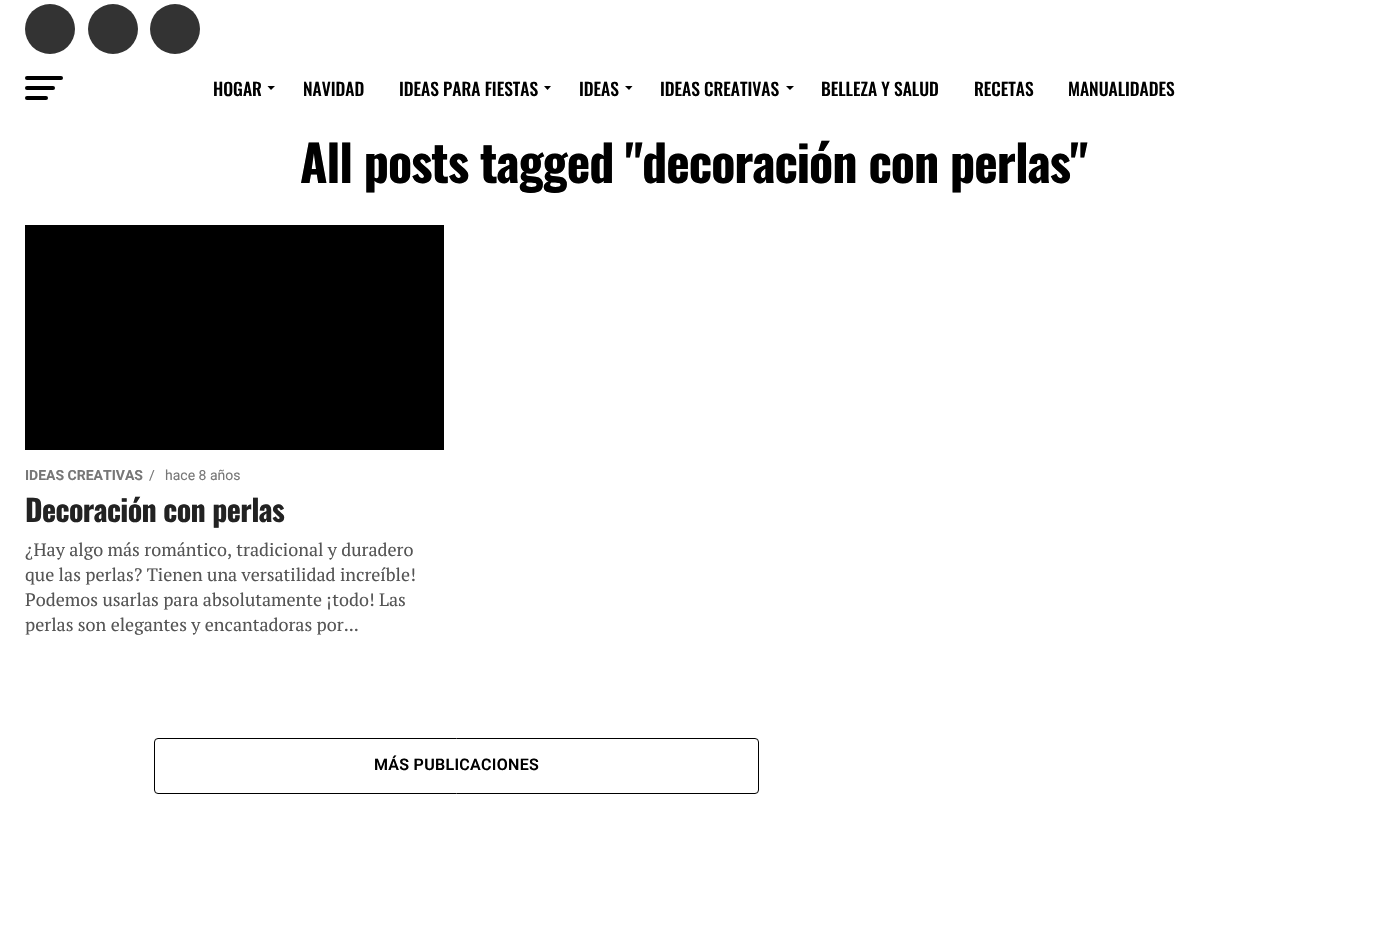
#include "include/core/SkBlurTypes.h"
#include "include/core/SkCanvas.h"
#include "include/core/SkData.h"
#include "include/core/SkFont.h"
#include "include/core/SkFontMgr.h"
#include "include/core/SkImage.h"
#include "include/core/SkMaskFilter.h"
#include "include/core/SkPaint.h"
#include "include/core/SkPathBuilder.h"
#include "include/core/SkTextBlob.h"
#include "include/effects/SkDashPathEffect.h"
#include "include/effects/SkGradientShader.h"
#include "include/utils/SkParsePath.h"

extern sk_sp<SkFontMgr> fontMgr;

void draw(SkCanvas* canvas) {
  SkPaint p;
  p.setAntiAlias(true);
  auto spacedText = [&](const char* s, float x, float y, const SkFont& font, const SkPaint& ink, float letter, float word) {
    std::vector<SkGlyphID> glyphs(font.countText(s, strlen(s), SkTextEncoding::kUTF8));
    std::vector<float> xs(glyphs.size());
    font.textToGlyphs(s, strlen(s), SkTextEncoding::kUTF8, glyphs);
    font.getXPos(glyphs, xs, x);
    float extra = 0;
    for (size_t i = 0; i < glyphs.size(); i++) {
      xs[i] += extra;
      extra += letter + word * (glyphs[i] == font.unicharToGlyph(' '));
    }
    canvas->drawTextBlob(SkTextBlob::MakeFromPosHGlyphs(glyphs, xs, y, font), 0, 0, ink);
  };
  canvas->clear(SK_ColorWHITE);
  p.setColor(SkColorSetRGB(51, 51, 51));
  canvas->drawCircle(50, 29, 25, p);
  canvas->drawCircle(113, 29, 25, p);
  canvas->drawCircle(175, 29, 25, p);
  p.setColor(SK_ColorBLACK);
  canvas->drawRoundRect(SkRect::MakeLTRB(25, 76, 63, 80), 2, 2, p);
  canvas->drawRoundRect(SkRect::MakeLTRB(25, 86, 55, 90), 2, 2, p);
  canvas->drawRoundRect(SkRect::MakeLTRB(25, 96, 48, 100), 2, 2, p);
  canvas->drawPath(SkPathBuilder().moveTo(267.5f, 86).lineTo(275, 86).lineTo(271, 90).close().detach(), p);
  canvas->drawPath(SkPathBuilder().moveTo(544, 86).lineTo(551, 86).lineTo(547.5f, 90).close().detach(), p);
  canvas->drawPath(SkPathBuilder().moveTo(625, 86).lineTo(632.5f, 86).lineTo(629, 90).close().detach(), p);
  canvas->drawPath(SkPathBuilder().moveTo(786, 86).lineTo(794, 86).lineTo(790, 90).close().detach(), p);
  canvas->drawRect(SkRect::MakeLTRB(25, 225, 444, 450), p);
  p.setStyle(SkPaint::kStroke_Style);
  p.setStrokeWidth(1);
  canvas->drawRoundRect(SkRect::MakeLTRB(154.5f, 738.5f, 758.5f, 793.5f), 3.5f, 3.5f, p);
  SkFont font1(fontMgr->matchFamilyStyle("Oswald", SkFontStyle(500, SkFontStyle::kNormal_Width, SkFontStyle::kUpright_Slant)), 17.5f);
  font1.setSubpixel(true);
  p.setStyle(SkPaint::kFill_Style);
  canvas->drawString("HOGAR", 213, 96, font1, p);
  canvas->drawString("NAVIDAD", 303, 96, font1, p);
  canvas->drawString("IDEAS PARA FIESTAS", 399, 96, font1, p);
  canvas->drawString("IDEAS", 579, 96, font1, p);
  canvas->drawString("IDEAS CREATIVAS", 660, 96, font1, p);
  canvas->drawString("BELLEZA Y SALUD", 821, 96, font1, p);
  canvas->drawString("RECETAS", 974, 96, font1, p);
  canvas->drawString("MANUALIDADES", 1068, 96, font1, p);
  SkFont font2(fontMgr->matchFamilyStyle("Oswald", SkFontStyle::Bold()), 50);
  font2.setSubpixel(true);
  spacedText("All posts tagged \"decoración con perlas\"", 300, 183, font2, p, -1, 0);
  SkFont font3(fontMgr->matchFamilyStyle("Roboto", SkFontStyle::Bold()), 14);
  font3.setSubpixel(true);
  p.setColor(SkColorSetRGB(119, 119, 119));
  canvas->drawString("IDEAS CREATIVAS", 25, 480, font3, p);
  SkFont font4(fontMgr->matchFamilyStyle("Roboto", SkFontStyle::Normal()), 14);
  font4.setSubpixel(true);
  canvas->drawString("/", 149, 480, font4, p);
  canvas->drawString("hace 8 años", 165, 480, font4, p);
  SkFont font5(fontMgr->matchFamilyStyle("Oswald", SkFontStyle::Bold()), 30);
  font5.setSubpixel(true);
  p.setColor(SkColorSetRGB(34, 34, 34));
  spacedText("Decoración con perlas", 25, 522, font5, p, -0.6f, 0);
  SkFont font6(fontMgr->matchFamilyStyle("PT Serif", SkFontStyle::Normal()), 18);
  font6.setSubpixel(true);
  p.setColor(SkColorSetRGB(85, 85, 85));
  canvas->drawString("¿Hay algo más romántico, tradicional y duradero", 25, 556, font6, p);
  canvas->drawString("que las perlas? Tienen una versatilidad increíble!", 25, 581, font6, p);
  canvas->drawString("Podemos usarlas para absolutamente ¡todo! Las", 25, 606, font6, p);
  canvas->drawString("perlas son elegantes y encantadoras por...", 25, 631, font6, p);
  SkFont font7(fontMgr->matchFamilyStyle("Roboto", SkFontStyle(600, SkFontStyle::kNormal_Width, SkFontStyle::kUpright_Slant)), 16);
  font7.setSubpixel(true);
  p.setColor(SK_ColorBLACK);
  spacedText("MÁS PUBLICACIONES", 374, 770, font7, p, 0.3f, 0);
}
